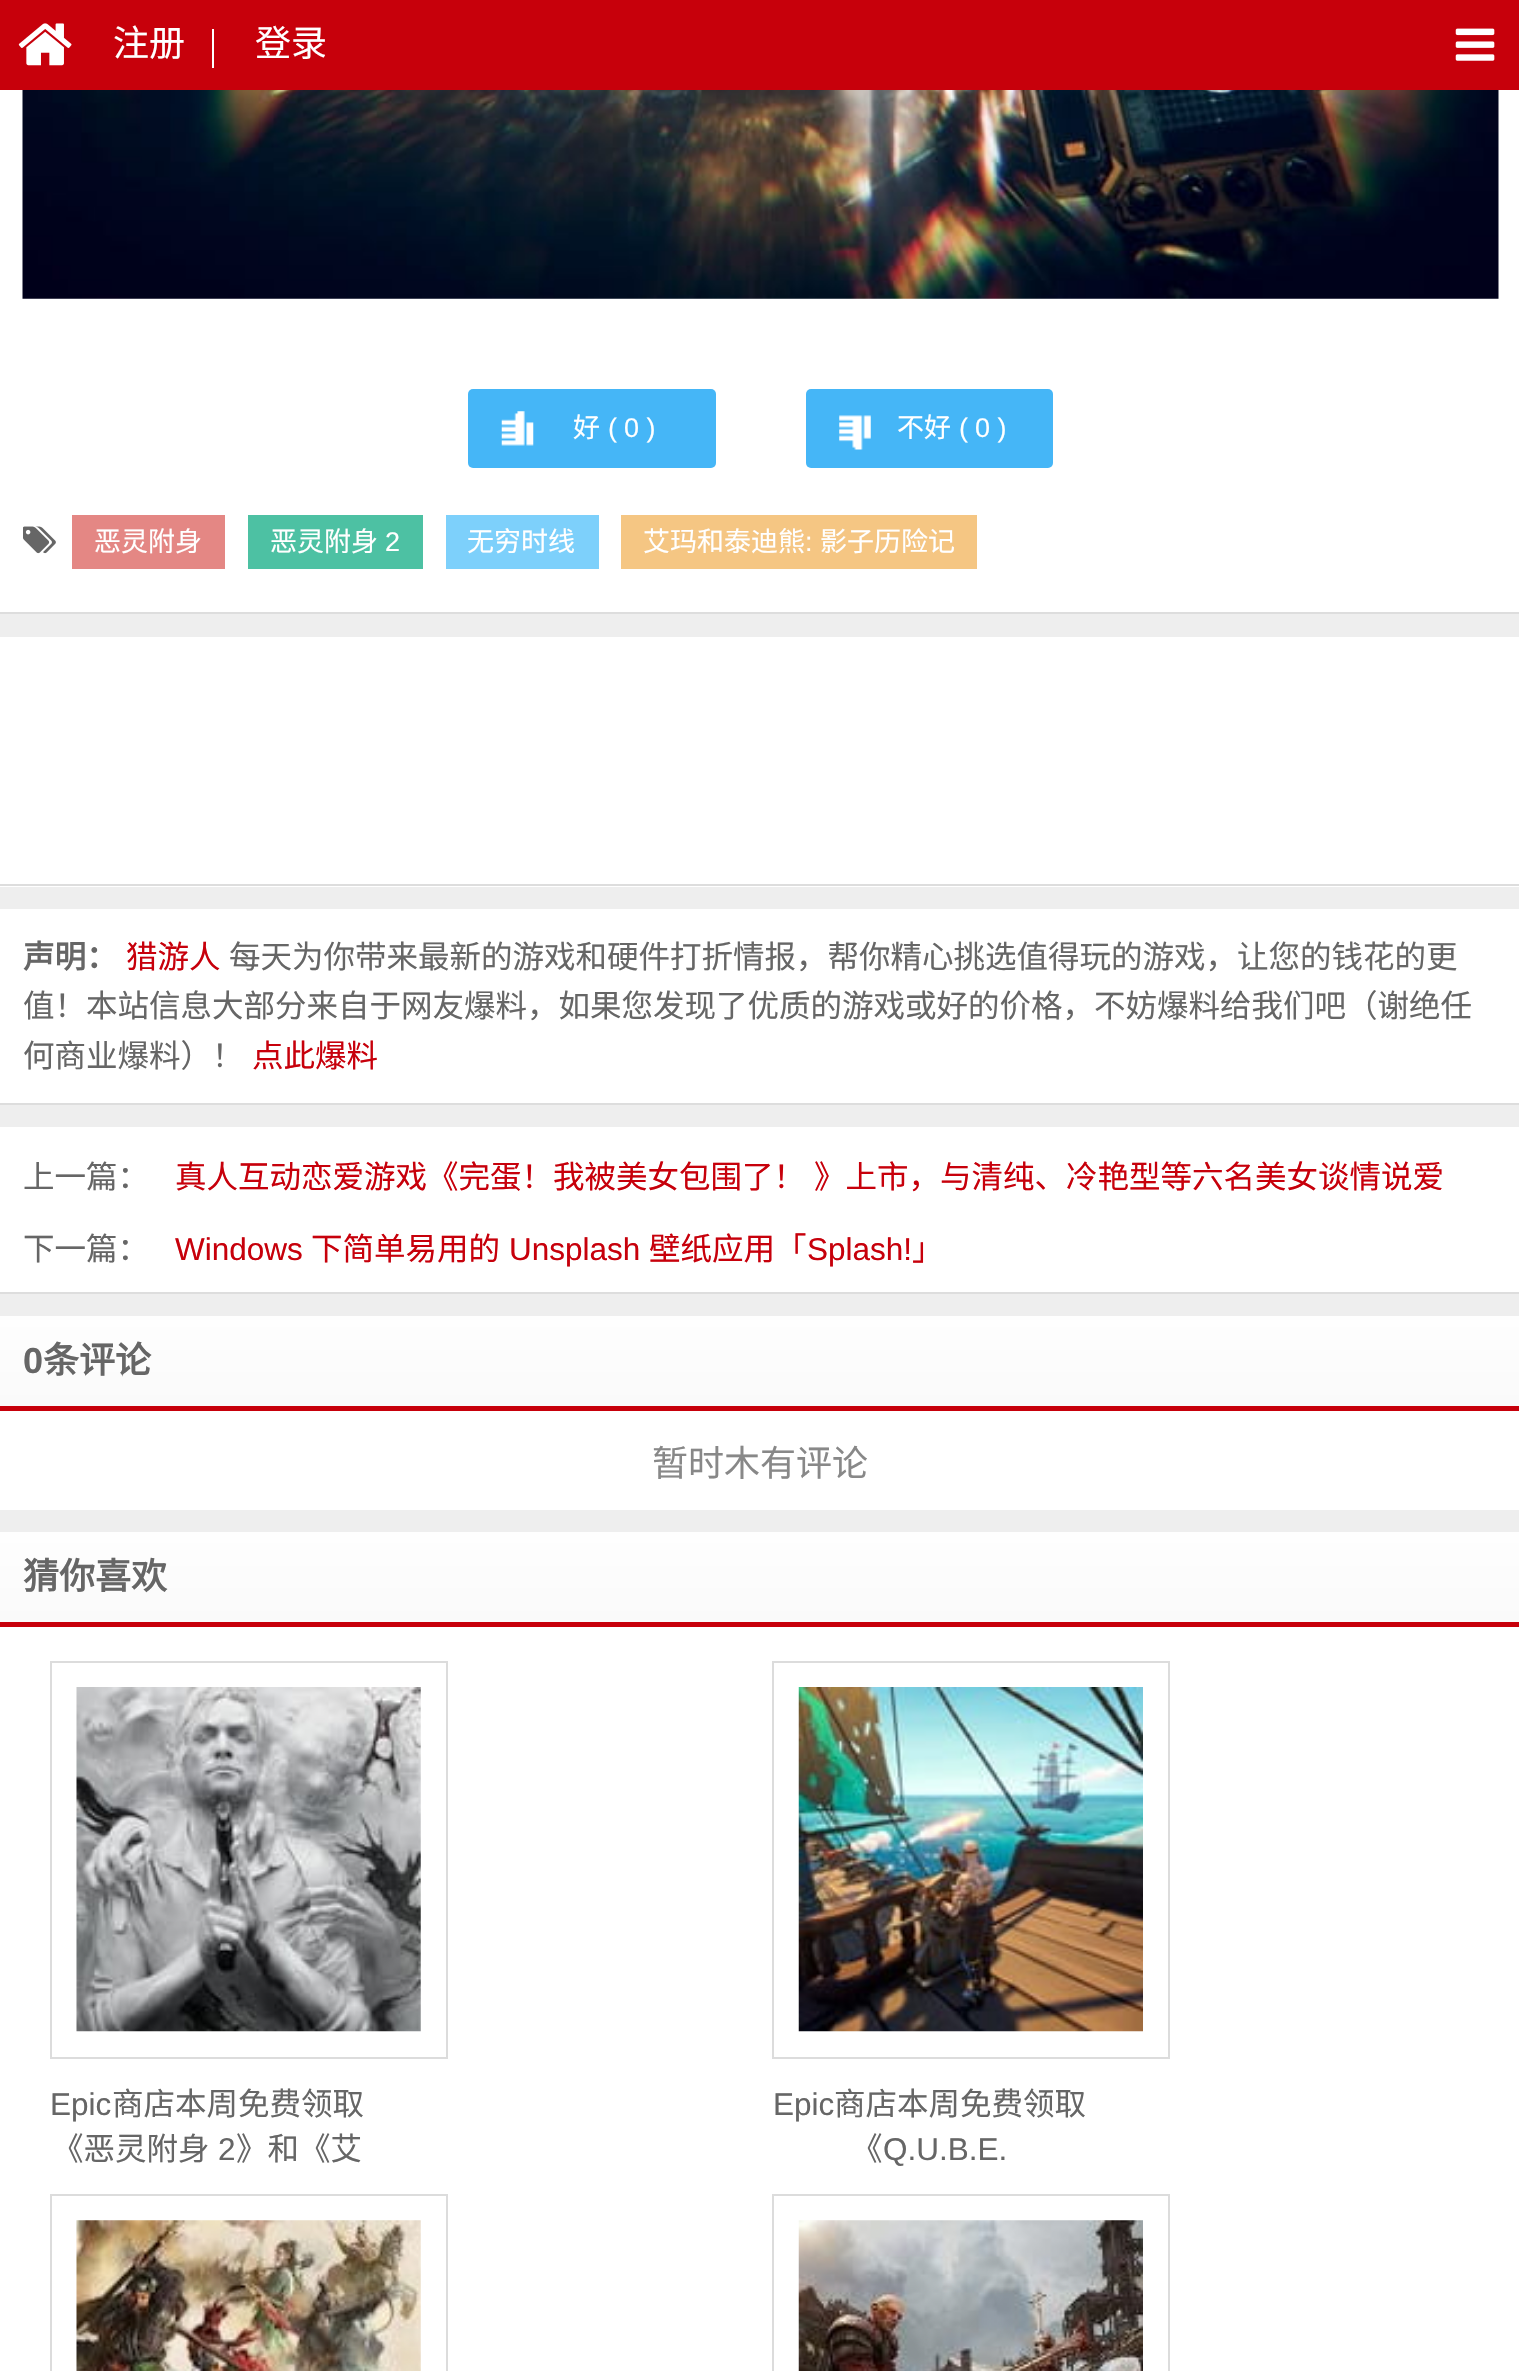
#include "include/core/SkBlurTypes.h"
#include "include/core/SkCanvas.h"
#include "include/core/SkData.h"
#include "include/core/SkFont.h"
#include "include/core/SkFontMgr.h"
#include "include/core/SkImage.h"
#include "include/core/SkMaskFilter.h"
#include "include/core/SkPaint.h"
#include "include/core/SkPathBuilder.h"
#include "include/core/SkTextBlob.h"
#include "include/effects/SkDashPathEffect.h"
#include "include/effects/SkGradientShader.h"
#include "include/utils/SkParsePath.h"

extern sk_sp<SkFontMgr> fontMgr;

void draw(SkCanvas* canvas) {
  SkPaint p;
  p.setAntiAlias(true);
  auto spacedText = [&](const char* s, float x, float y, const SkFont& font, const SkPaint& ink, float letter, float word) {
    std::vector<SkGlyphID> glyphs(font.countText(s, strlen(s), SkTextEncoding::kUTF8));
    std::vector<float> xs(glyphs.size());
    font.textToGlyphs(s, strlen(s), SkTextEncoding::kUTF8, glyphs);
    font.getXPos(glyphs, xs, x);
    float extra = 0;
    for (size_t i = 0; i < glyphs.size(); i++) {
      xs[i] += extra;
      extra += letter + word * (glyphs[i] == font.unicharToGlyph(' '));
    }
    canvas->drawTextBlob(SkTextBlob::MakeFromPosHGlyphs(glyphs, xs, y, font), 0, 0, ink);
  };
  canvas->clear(SkColorSetRGB(238, 238, 238));
  p.setColor(SkColorSetRGB(199, 0, 11));
  canvas->drawRect(SkRect::MakeLTRB(0, 0, 1519, 90), p);
  canvas->drawImageRect(SkImages::DeferredFromEncodedData(SkData::MakeFromFileName("images/1.png")), SkRect::MakeLTRB(18, 23, 72, 66), SkSamplingOptions());
  p.setColor(SK_ColorWHITE);
  canvas->drawRect(SkRect::MakeLTRB(212, 29, 214, 68), p);
  canvas->drawImageRect(SkImages::DeferredFromEncodedData(SkData::MakeFromFileName("images/2.png")), SkRect::MakeLTRB(1455, 28, 1495, 61), SkSamplingOptions());
  canvas->drawRect(SkRect::MakeLTRB(0, 90, 1519, 612), p);
  p.setColor(SkColorSetRGB(221, 221, 221));
  canvas->drawRect(SkRect::MakeLTRB(0, 612, 1519, 614), p);
  canvas->drawImageRect(SkImages::DeferredFromEncodedData(SkData::MakeFromFileName("images/3.png")), SkRect::MakeLTRB(22, 90, 1499, 299), SkSamplingOptions());
  p.setColor(SkColorSetRGB(69, 182, 247));
  canvas->drawRoundRect(SkRect::MakeLTRB(468, 389, 716, 468), 5, 5, p);
  canvas->drawImageRect(SkImages::DeferredFromEncodedData(SkData::MakeFromFileName("images/4.png")), SkRect::MakeLTRB(501, 411, 534, 446), SkSamplingOptions());
  canvas->drawRoundRect(SkRect::MakeLTRB(806, 389, 1053, 468), 5, 5, p);
  canvas->drawImageRect(SkImages::DeferredFromEncodedData(SkData::MakeFromFileName("images/5.png")), SkRect::MakeLTRB(839, 415, 871, 450), SkSamplingOptions());
  canvas->drawImageRect(SkImages::DeferredFromEncodedData(SkData::MakeFromFileName("images/6.png")), SkRect::MakeLTRB(23, 526, 56, 554), SkSamplingOptions());
  p.setColor(SkColorSetRGB(228, 135, 132));
  canvas->drawRect(SkRect::MakeLTRB(72, 515, 225, 569), p);
  p.setColor(SkColorSetRGB(77, 193, 163));
  canvas->drawRect(SkRect::MakeLTRB(248, 515, 423, 569), p);
  p.setColor(SkColorSetRGB(125, 208, 251));
  canvas->drawRect(SkRect::MakeLTRB(446, 515, 599, 569), p);
  p.setColor(SkColorSetRGB(245, 198, 131));
  canvas->drawRect(SkRect::MakeLTRB(621, 515, 977, 569), p);
  p.setColor(SK_ColorWHITE);
  canvas->drawRect(SkRect::MakeLTRB(0, 637, 1519, 887), p);
  p.setColor(SkColorSetRGB(221, 221, 221));
  canvas->drawRect(SkRect::MakeLTRB(0, 884, 1519, 886), p);
  p.setColor(SK_ColorWHITE);
  canvas->drawRect(SkRect::MakeLTRB(0, 909, 1519, 1103), p);
  p.setColor(SkColorSetRGB(221, 221, 221));
  canvas->drawRect(SkRect::MakeLTRB(0, 1103, 1519, 1105), p);
  p.setColor(SK_ColorWHITE);
  canvas->drawRect(SkRect::MakeLTRB(0, 1127, 1519, 1292), p);
  p.setColor(SkColorSetRGB(221, 221, 221));
  canvas->drawRect(SkRect::MakeLTRB(0, 1292, 1519, 1294), p);
  p.setColor(SK_ColorWHITE);
  canvas->drawRect(SkRect::MakeLTRB(0, 1411, 1519, 1510), p);
  {
    const SkColor colors[] = {SkColorSetRGB(254, 254, 254), SkColorSetRGB(250, 250, 250)};
    const float stops[] = {0, 1};
    const SkPoint ends[] = {{0, 1316}, {0, 1406}};
    p.setShader(SkGradientShader::MakeLinear(ends, colors, stops, 2, SkTileMode::kClamp));
    p.setAlpha(255);
  }
  canvas->drawRect(SkRect::MakeLTRB(0, 1316, 1519, 1406), p);
  p.setShader(nullptr);
  p.setColor(SkColorSetRGB(199, 0, 11));
  canvas->drawRect(SkRect::MakeLTRB(0, 1406, 1519, 1411), p);
  p.setColor(SK_ColorWHITE);
  canvas->drawRect(SkRect::MakeLTRB(0, 1627, 1519, 2371), p);
  {
    const SkColor colors[] = {SkColorSetRGB(254, 254, 254), SkColorSetRGB(250, 250, 250)};
    const float stops[] = {0, 1};
    const SkPoint ends[] = {{0, 1532}, {0, 1622}};
    p.setShader(SkGradientShader::MakeLinear(ends, colors, stops, 2, SkTileMode::kClamp));
    p.setAlpha(255);
  }
  canvas->drawRect(SkRect::MakeLTRB(0, 1532, 1519, 1622), p);
  p.setShader(nullptr);
  p.setColor(SkColorSetRGB(199, 0, 11));
  canvas->drawRect(SkRect::MakeLTRB(0, 1622, 1519, 1627), p);
  p.setStyle(SkPaint::kStroke_Style);
  p.setStrokeWidth(2);
  p.setColor(SkColorSetRGB(220, 220, 220));
  canvas->drawRect(SkRect::MakeLTRB(51, 1662, 447, 2058), p);
  canvas->drawImageRect(SkImages::DeferredFromEncodedData(SkData::MakeFromFileName("images/7.png")), SkRect::MakeLTRB(76, 1687, 421, 2032), SkSamplingOptions());
  canvas->drawRect(SkRect::MakeLTRB(773, 1662, 1169, 2058), p);
  canvas->drawImageRect(SkImages::DeferredFromEncodedData(SkData::MakeFromFileName("images/8.png")), SkRect::MakeLTRB(798, 1687, 1143, 2032), SkSamplingOptions());
  canvas->drawRect(SkRect::MakeLTRB(51, 2195, 447, 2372), p);
  canvas->drawImageRect(SkImages::DeferredFromEncodedData(SkData::MakeFromFileName("images/9.png")), SkRect::MakeLTRB(76, 2220, 421, 2371), SkSamplingOptions());
  canvas->drawRect(SkRect::MakeLTRB(773, 2195, 1169, 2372), p);
  canvas->drawImageRect(SkImages::DeferredFromEncodedData(SkData::MakeFromFileName("images/10.png")), SkRect::MakeLTRB(798, 2220, 1143, 2371), SkSamplingOptions());
  SkFont font1(fontMgr->matchFamilyStyle("Noto Sans CJK SC", SkFontStyle::Normal()), 36);
  font1.setSubpixel(true);
  p.setStyle(SkPaint::kFill_Style);
  p.setColor(SK_ColorWHITE);
  canvas->drawString("注册", 113, 56, font1, p);
  canvas->drawString("登录", 255, 56, font1, p);
  SkFont font2(fontMgr->matchFamilyStyle("Noto Sans CJK SC", SkFontStyle::Normal()), 27);
  font2.setSubpixel(true);
  canvas->drawString("好", 573, 437, font2, p);
  SkFont font3(fontMgr->matchFamilyStyle("Liberation Sans", SkFontStyle::Normal()), 27);
  font3.setSubpixel(true);
  canvas->drawString("(", 608, 437, font3, p);
  canvas->drawString("0 )", 624, 437, font3, p);
  canvas->drawString("不好", 897, 437, font2, p);
  canvas->drawString("(", 959, 437, font3, p);
  canvas->drawString("0 )", 975, 437, font3, p);
  canvas->drawString("恶灵附身", 94, 551, font2, p);
  canvas->drawString("恶灵附身", 270, 551, font2, p);
  canvas->drawString("2", 385, 551, font3, p);
  canvas->drawString("无穷时线", 467, 551, font2, p);
  canvas->drawString("艾玛和泰迪熊", 643, 551, font2, p);
  canvas->drawString(":", 805, 551, font3, p);
  canvas->drawString("影子历险记", 820, 551, font2, p);
  SkFont font4(fontMgr->matchFamilyStyle("Noto Sans CJK SC", SkFontStyle::Bold()), 31.5f);
  font4.setSubpixel(true);
  p.setColor(SkColorSetRGB(102, 102, 102));
  canvas->drawString("声明：", 23, 968, font4, p);
  SkFont font5(fontMgr->matchFamilyStyle("Noto Sans CJK SC", SkFontStyle::Normal()), 31.5f);
  font5.setSubpixel(true);
  p.setColor(SkColorSetRGB(199, 0, 11));
  canvas->drawString("猎游人", 126, 968, font5, p);
  p.setColor(SkColorSetRGB(102, 102, 102));
  canvas->drawString("每天为你带来最新的游戏和硬件打折情报，帮你精心挑选值得玩的游戏，让您的钱花的更", 229, 968, font5, p);
  canvas->drawString("值！本站信息大部分来自于网友爆料，如果您发现了优质的游戏或好的价格，不妨爆料给我们吧（谢绝任", 23, 1017, font5, p);
  canvas->drawString("何商业爆料）！", 23, 1067, font5, p);
  p.setColor(SkColorSetRGB(199, 0, 11));
  canvas->drawString("点此爆料", 252, 1067, font5, p);
  p.setColor(SkColorSetRGB(102, 102, 102));
  canvas->drawString("上一篇：", 23, 1188, font5, p);
  p.setColor(SkColorSetRGB(199, 0, 11));
  spacedText("真人互动恋爱游戏《完蛋！我被美女包围了！ 》上市，与清纯、冷艳型等六名美女谈情说爱", 175, 1188, font5, p, 0, 2);
  p.setColor(SkColorSetRGB(102, 102, 102));
  canvas->drawString("下一篇：", 23, 1260, font5, p);
  SkFont font6(fontMgr->matchFamilyStyle("Liberation Sans", SkFontStyle::Normal()), 31.5f);
  font6.setSubpixel(true);
  p.setColor(SkColorSetRGB(199, 0, 11));
  canvas->drawString("Windows", 175, 1260, font6, p);
  canvas->drawString("下简单易用的", 311, 1260, font5, p);
  canvas->drawString("Unsplash", 509, 1260, font6, p);
  canvas->drawString("壁纸应用「", 649, 1260, font5, p);
  canvas->drawString("Splash!", 807, 1260, font6, p);
  canvas->drawString("」", 912, 1260, font5, p);
  SkFont font7(fontMgr->matchFamilyStyle("Liberation Sans", SkFontStyle::Bold()), 36);
  font7.setSubpixel(true);
  p.setColor(SkColorSetRGB(102, 102, 102));
  canvas->drawString("0", 23, 1373, font7, p);
  SkFont font8(fontMgr->matchFamilyStyle("Noto Sans CJK SC", SkFontStyle::Bold()), 36);
  font8.setSubpixel(true);
  canvas->drawString("条评论", 43, 1373, font8, p);
  p.setColor(SkColorSetRGB(136, 136, 136));
  canvas->drawString("暂时木有评论", 652, 1476, font1, p);
  p.setColor(SkColorSetRGB(102, 102, 102));
  canvas->drawString("猜你喜欢", 23, 1589, font8, p);
  canvas->drawString("Epic", 50, 2115, font6, p);
  canvas->drawString("商店本周免费领取", 112, 2115, font5, p);
  canvas->drawString("《恶灵附身", 52, 2160, font5, p);
  canvas->drawString("2", 218, 2160, font6, p);
  canvas->drawString("》和《艾", 236, 2160, font5, p);
  canvas->drawString("Epic", 773, 2115, font6, p);
  canvas->drawString("商店本周免费领取", 834, 2115, font5, p);
  canvas->drawString("《", 851, 2160, font5, p);
  canvas->drawString("Q.U.B.E.", 883, 2160, font6, p);
}
